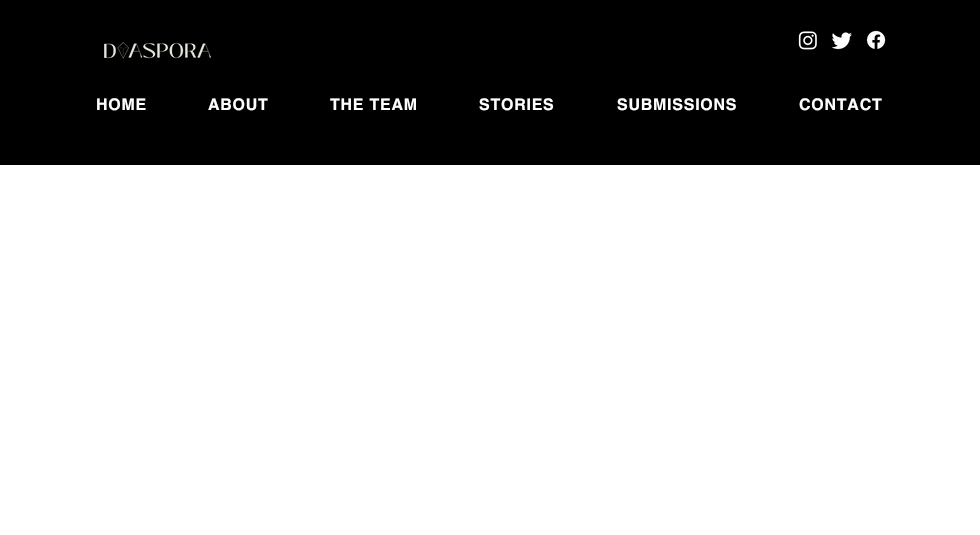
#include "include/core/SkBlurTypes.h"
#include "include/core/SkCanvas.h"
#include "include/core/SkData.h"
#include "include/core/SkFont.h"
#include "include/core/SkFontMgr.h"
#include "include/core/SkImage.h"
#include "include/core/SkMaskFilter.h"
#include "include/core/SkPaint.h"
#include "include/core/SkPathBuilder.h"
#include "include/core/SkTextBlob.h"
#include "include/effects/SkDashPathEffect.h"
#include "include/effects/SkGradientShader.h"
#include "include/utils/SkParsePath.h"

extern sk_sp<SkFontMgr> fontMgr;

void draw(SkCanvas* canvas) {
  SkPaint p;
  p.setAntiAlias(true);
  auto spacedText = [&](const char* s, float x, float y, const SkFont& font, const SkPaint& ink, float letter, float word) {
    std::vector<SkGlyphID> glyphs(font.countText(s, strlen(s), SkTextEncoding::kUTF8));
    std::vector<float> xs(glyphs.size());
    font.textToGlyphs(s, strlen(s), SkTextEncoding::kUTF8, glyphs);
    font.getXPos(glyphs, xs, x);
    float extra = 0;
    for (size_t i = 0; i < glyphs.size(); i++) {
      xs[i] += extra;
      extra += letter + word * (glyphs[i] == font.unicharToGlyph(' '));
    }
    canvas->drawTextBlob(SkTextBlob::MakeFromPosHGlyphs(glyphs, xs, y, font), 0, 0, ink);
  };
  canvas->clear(SK_ColorWHITE);
  p.setColor(SK_ColorBLACK);
  canvas->drawRect(SkRect::MakeLTRB(0, 0, 980, 165), p);
  canvas->drawImageRect(SkImages::DeferredFromEncodedData(SkData::MakeFromFileName("images/1.png")), SkRect::MakeLTRB(104, 42, 211, 59), SkSamplingOptions());
  canvas->drawImageRect(SkImages::DeferredFromEncodedData(SkData::MakeFromFileName("images/2.png")), SkRect::MakeLTRB(798, 31, 817, 50), SkSamplingOptions());
  canvas->drawImageRect(SkImages::DeferredFromEncodedData(SkData::MakeFromFileName("images/3.png")), SkRect::MakeLTRB(831, 32, 852, 50), SkSamplingOptions());
  canvas->drawImageRect(SkImages::DeferredFromEncodedData(SkData::MakeFromFileName("images/4.png")), SkRect::MakeLTRB(866, 30, 886, 49), SkSamplingOptions());
  SkFont font1(fontMgr->matchFamilyStyle("helvetica", SkFontStyle::Bold()), 16);
  font1.setSubpixel(true);
  p.setColor(SK_ColorWHITE);
  spacedText("HOME", 96, 110, font1, p, 0.75f, 0);
  spacedText("ABOUT", 208, 110, font1, p, 0.75f, 0);
  spacedText("THE TEAM", 330, 110, font1, p, 0.75f, 0);
  spacedText("STORIES", 479, 110, font1, p, 0.75f, 0);
  spacedText("SUBMISSIONS", 617, 110, font1, p, 0.75f, 0);
  spacedText("CONTACT", 799, 110, font1, p, 0.75f, 0);
}
